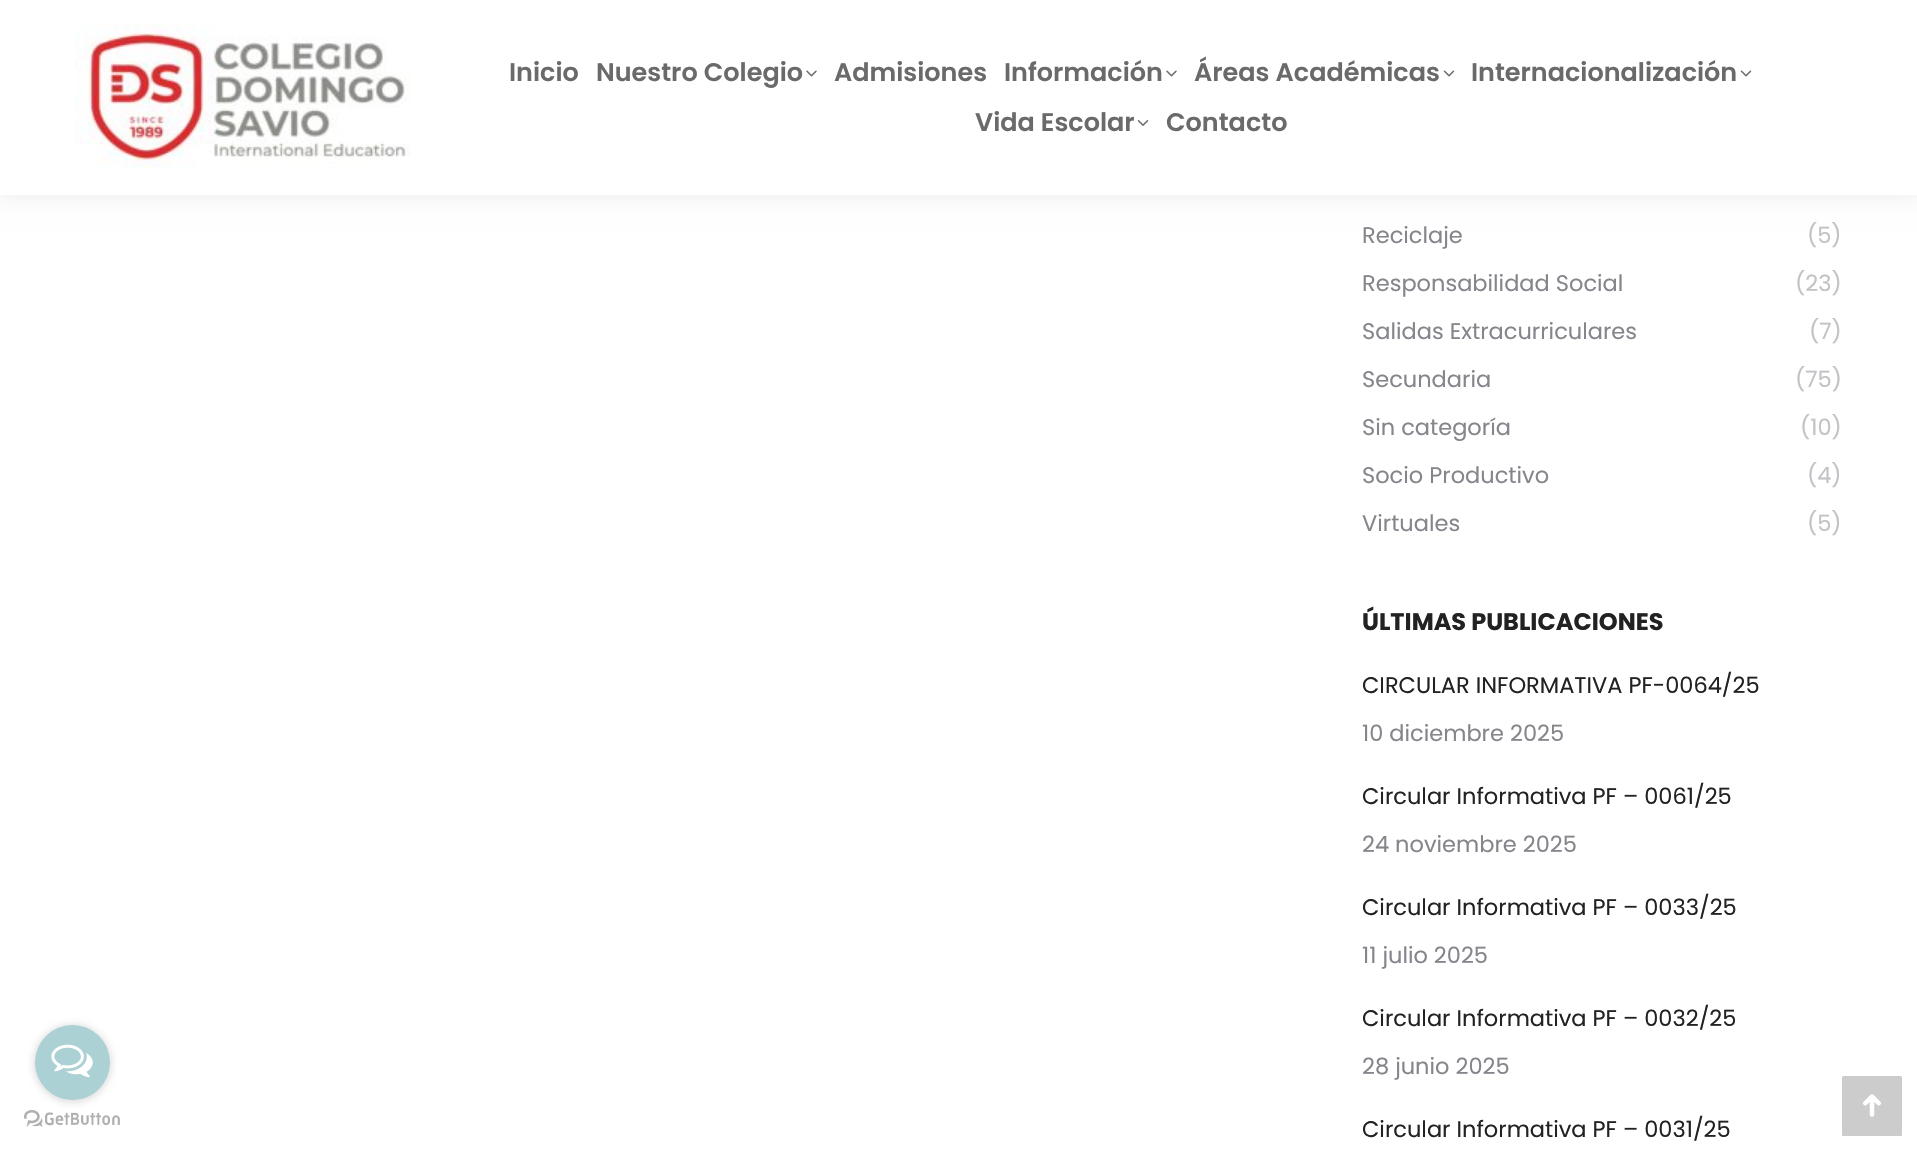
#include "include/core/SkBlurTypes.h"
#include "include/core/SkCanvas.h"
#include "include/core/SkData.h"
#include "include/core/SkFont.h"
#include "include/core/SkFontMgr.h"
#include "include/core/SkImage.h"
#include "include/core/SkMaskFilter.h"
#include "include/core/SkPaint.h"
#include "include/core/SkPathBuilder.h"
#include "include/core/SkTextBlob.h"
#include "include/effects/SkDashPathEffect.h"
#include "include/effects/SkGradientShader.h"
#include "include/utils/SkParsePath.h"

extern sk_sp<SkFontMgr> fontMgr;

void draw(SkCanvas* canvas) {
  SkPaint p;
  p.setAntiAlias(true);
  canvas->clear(SK_ColorWHITE);
  p.setColor(SkColorSetARGB(18, 0, 0, 0));
  p.setMaskFilter(SkMaskFilter::MakeBlur(kNormal_SkBlurStyle, 11));
  canvas->drawRect(SkRect::MakeLTRB(-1, -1, 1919, 197), p);
  p.setMaskFilter(nullptr);
  p.setColor(SK_ColorWHITE);
  canvas->drawRect(SkRect::MakeLTRB(0, 0, 1917, 195), p);
  canvas->drawImageRect(SkImages::DeferredFromEncodedData(SkData::MakeFromFileName("images/1.png")), SkRect::MakeLTRB(75, 23, 411, 169), SkSamplingOptions());
  canvas->drawImageRect(SkImages::DeferredFromEncodedData(SkData::MakeFromFileName("images/2.png")), SkRect::MakeLTRB(806, 70, 817, 77), SkSamplingOptions());
  canvas->drawImageRect(SkImages::DeferredFromEncodedData(SkData::MakeFromFileName("images/2.png")), SkRect::MakeLTRB(1166, 70, 1177, 77), SkSamplingOptions());
  canvas->drawImageRect(SkImages::DeferredFromEncodedData(SkData::MakeFromFileName("images/3.png")), SkRect::MakeLTRB(1443, 70, 1455, 77), SkSamplingOptions());
  canvas->drawImageRect(SkImages::DeferredFromEncodedData(SkData::MakeFromFileName("images/3.png")), SkRect::MakeLTRB(1740, 70, 1752, 77), SkSamplingOptions());
  canvas->drawImageRect(SkImages::DeferredFromEncodedData(SkData::MakeFromFileName("images/4.png")), SkRect::MakeLTRB(1137, 120, 1149, 126), SkSamplingOptions());
  canvas->drawImageRect(SkImages::DeferredFromEncodedData(SkData::MakeFromFileName("images/6.png")), SkRect::MakeLTRB(24, 1110, 120, 1127), SkSamplingOptions());
  p.setColor(SkColorSetARGB(102, 136, 136, 136));
  p.setMaskFilter(SkMaskFilter::MakeBlur(kNormal_SkBlurStyle, 5));
  canvas->drawRoundRect(SkRect::MakeLTRB(35, 1026, 110, 1101), 37.5f, 37.5f, p);
  p.setMaskFilter(nullptr);
  p.setColor(SkColorSetRGB(172, 209, 212));
  canvas->drawCircle(72.5f, 1062.5f, 37.5f, p);
  canvas->drawImageRect(SkImages::DeferredFromEncodedData(SkData::MakeFromFileName("images/5.png")), SkRect::MakeLTRB(51, 1044, 93, 1078), SkSamplingOptions());
  p.setColor(SkColorSetRGB(204, 204, 204));
  canvas->drawRoundRect(SkRect::MakeLTRB(1842, 1076, 1902, 1136), 1.5f, 1.5f, p);
  canvas->drawImageRect(SkImages::DeferredFromEncodedData(SkData::MakeFromFileName("images/7.png")), SkRect::MakeLTRB(1863, 1094, 1881, 1117), SkSamplingOptions());
  SkFont font1(fontMgr->matchFamilyStyle("Poppins", SkFontStyle(600, SkFontStyle::kNormal_Width, SkFontStyle::kUpright_Slant)), 25.5f);
  font1.setSubpixel(true);
  p.setColor(SkColorSetRGB(106, 106, 106));
  canvas->drawString("Inicio", 509, 81, font1, p);
  canvas->drawString("Nuestro Colegio", 596, 81, font1, p);
  canvas->drawString("Admisiones", 834, 81, font1, p);
  canvas->drawString("Información", 1004, 81, font1, p);
  canvas->drawString("Áreas Académicas", 1194, 81, font1, p);
  canvas->drawString("Internacionalización", 1471, 81, font1, p);
  canvas->drawString("Vida Escolar", 975, 131, font1, p);
  canvas->drawString("Contacto", 1166, 131, font1, p);
  SkFont font2(fontMgr->matchFamilyStyle("Poppins", SkFontStyle::Normal()), 22.5f);
  font2.setSubpixel(true);
  p.setColor(SkColorSetRGB(133, 134, 140));
  canvas->drawString("Reciclaje", 1362, 243, font2, p);
  p.setColor(SkColorSetRGB(194, 195, 198));
  canvas->drawString("(5)", 1807, 243, font2, p);
  p.setColor(SkColorSetRGB(133, 134, 140));
  canvas->drawString("Responsabilidad Social", 1362, 291, font2, p);
  p.setColor(SkColorSetRGB(194, 195, 198));
  canvas->drawString("(23)", 1795, 291, font2, p);
  p.setColor(SkColorSetRGB(133, 134, 140));
  canvas->drawString("Salidas Extracurriculares", 1362, 339, font2, p);
  p.setColor(SkColorSetRGB(194, 195, 198));
  canvas->drawString("(7)", 1809, 339, font2, p);
  p.setColor(SkColorSetRGB(133, 134, 140));
  canvas->drawString("Secundaria", 1362, 387, font2, p);
  p.setColor(SkColorSetRGB(194, 195, 198));
  canvas->drawString("(75)", 1795, 387, font2, p);
  p.setColor(SkColorSetRGB(133, 134, 140));
  canvas->drawString("Sin categoría", 1362, 435, font2, p);
  p.setColor(SkColorSetRGB(194, 195, 198));
  canvas->drawString("(10)", 1800, 435, font2, p);
  p.setColor(SkColorSetRGB(133, 134, 140));
  canvas->drawString("Socio Productivo", 1362, 483, font2, p);
  p.setColor(SkColorSetRGB(194, 195, 198));
  canvas->drawString("(4)", 1807, 483, font2, p);
  p.setColor(SkColorSetRGB(133, 134, 140));
  canvas->drawString("Virtuales", 1362, 531, font2, p);
  p.setColor(SkColorSetRGB(194, 195, 198));
  canvas->drawString("(5)", 1807, 531, font2, p);
  SkFont font3(fontMgr->matchFamilyStyle("Poppins", SkFontStyle::Bold()), 24);
  font3.setSubpixel(true);
  p.setColor(SkColorSetRGB(34, 34, 34));
  canvas->drawString("ÚLTIMAS PUBLICACIONES", 1362, 630, font3, p);
  canvas->drawString("CIRCULAR INFORMATIVA PF-0064/25", 1362, 693, font2, p);
  p.setColor(SkColorSetRGB(133, 134, 140));
  canvas->drawString("10 diciembre 2025", 1362, 741, font2, p);
  p.setColor(SkColorSetRGB(34, 34, 34));
  canvas->drawString("Circular Informativa PF – 0061/25", 1362, 804, font2, p);
  p.setColor(SkColorSetRGB(133, 134, 140));
  canvas->drawString("24 noviembre 2025", 1362, 852, font2, p);
  p.setColor(SkColorSetRGB(34, 34, 34));
  canvas->drawString("Circular Informativa PF – 0033/25", 1362, 915, font2, p);
  p.setColor(SkColorSetRGB(133, 134, 140));
  canvas->drawString("11 julio 2025", 1362, 963, font2, p);
  p.setColor(SkColorSetRGB(34, 34, 34));
  canvas->drawString("Circular Informativa PF – 0032/25", 1362, 1026, font2, p);
  p.setColor(SkColorSetRGB(133, 134, 140));
  canvas->drawString("28 junio 2025", 1362, 1074, font2, p);
  p.setColor(SkColorSetRGB(34, 34, 34));
  canvas->drawString("Circular Informativa PF – 0031/25", 1362, 1137, font2, p);
}
